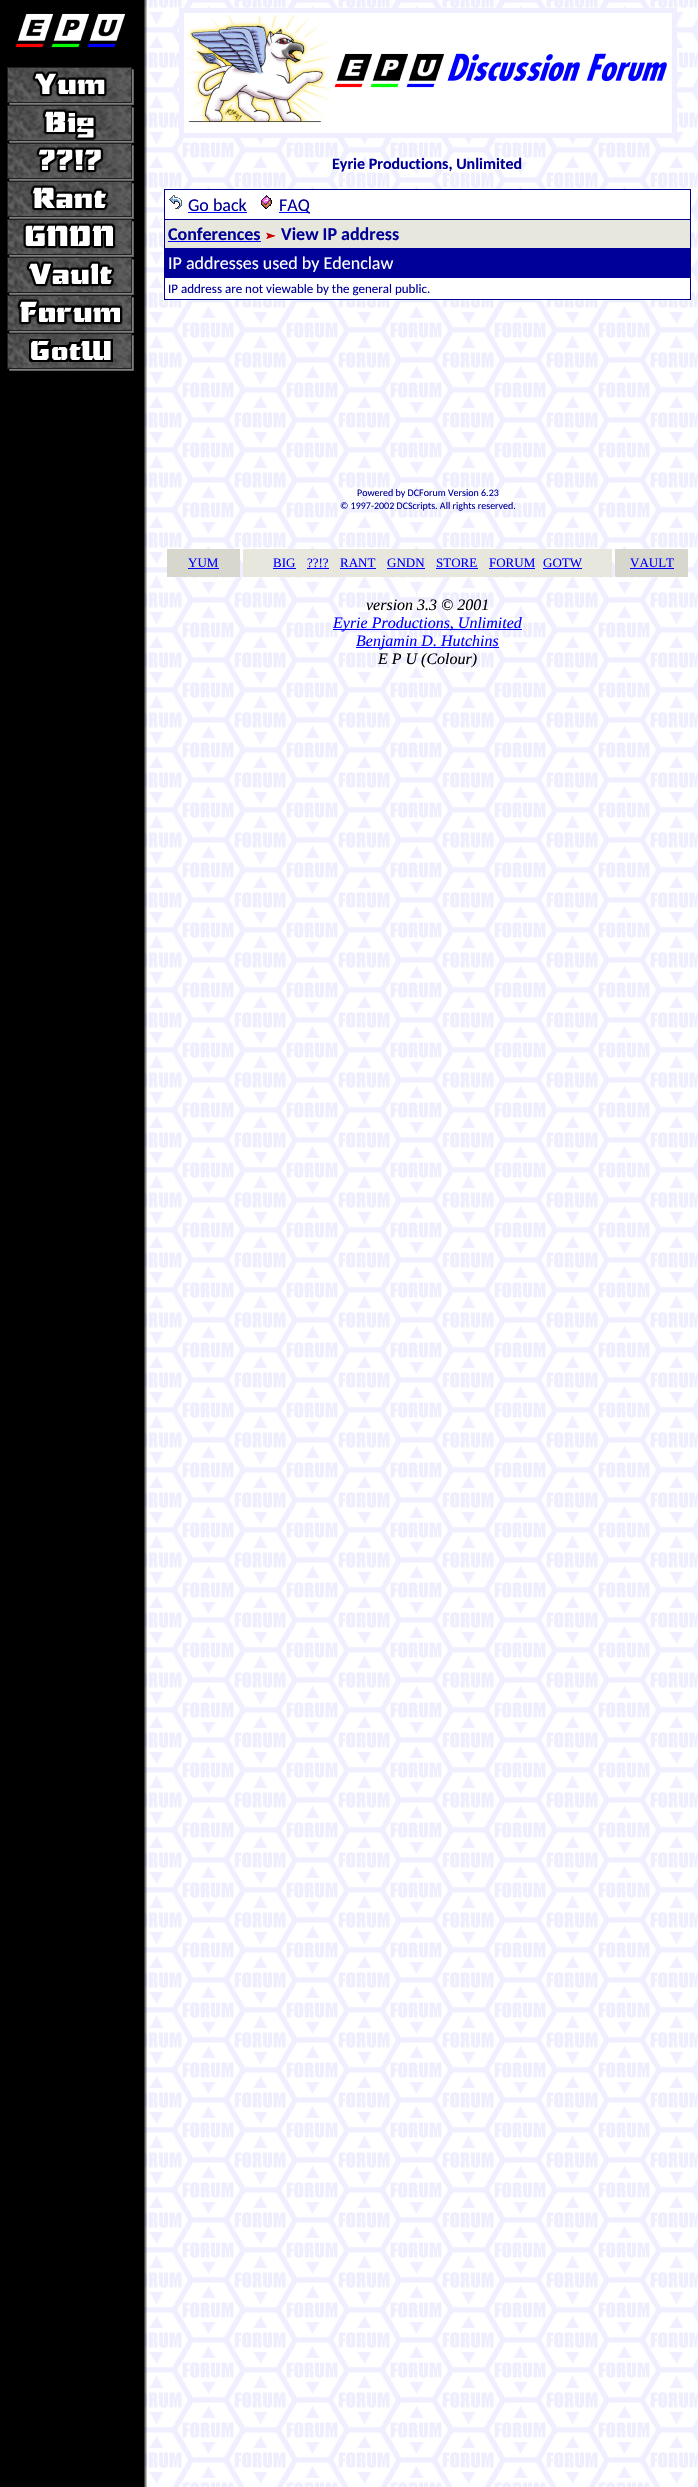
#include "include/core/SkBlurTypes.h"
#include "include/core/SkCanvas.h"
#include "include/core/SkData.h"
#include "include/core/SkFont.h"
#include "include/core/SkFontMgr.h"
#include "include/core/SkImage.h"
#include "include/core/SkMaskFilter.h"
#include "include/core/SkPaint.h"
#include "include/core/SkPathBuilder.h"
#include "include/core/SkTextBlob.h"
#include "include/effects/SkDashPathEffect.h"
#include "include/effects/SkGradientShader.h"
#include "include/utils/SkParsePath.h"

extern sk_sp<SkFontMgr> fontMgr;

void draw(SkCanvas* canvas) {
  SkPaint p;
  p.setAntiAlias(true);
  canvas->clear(SK_ColorWHITE);
  canvas->drawImageRect(SkImages::DeferredFromEncodedData(SkData::MakeFromFileName("images/1.png")), SkRect::MakeLTRB(0, 0, 698, 2487), SkSamplingOptions());
  canvas->drawImageRect(SkImages::DeferredFromEncodedData(SkData::MakeFromFileName("images/2.png")), SkRect::MakeLTRB(15, 13, 125, 48), SkSamplingOptions());
  canvas->drawImageRect(SkImages::DeferredFromEncodedData(SkData::MakeFromFileName("images/3.png")), SkRect::MakeLTRB(7, 67, 134, 105), SkSamplingOptions());
  canvas->drawImageRect(SkImages::DeferredFromEncodedData(SkData::MakeFromFileName("images/4.png")), SkRect::MakeLTRB(7, 105, 134, 143), SkSamplingOptions());
  canvas->drawImageRect(SkImages::DeferredFromEncodedData(SkData::MakeFromFileName("images/5.png")), SkRect::MakeLTRB(7, 143, 134, 181), SkSamplingOptions());
  canvas->drawImageRect(SkImages::DeferredFromEncodedData(SkData::MakeFromFileName("images/6.png")), SkRect::MakeLTRB(7, 181, 134, 219), SkSamplingOptions());
  canvas->drawImageRect(SkImages::DeferredFromEncodedData(SkData::MakeFromFileName("images/7.png")), SkRect::MakeLTRB(7, 219, 134, 257), SkSamplingOptions());
  canvas->drawImageRect(SkImages::DeferredFromEncodedData(SkData::MakeFromFileName("images/8.png")), SkRect::MakeLTRB(7, 257, 134, 295), SkSamplingOptions());
  canvas->drawImageRect(SkImages::DeferredFromEncodedData(SkData::MakeFromFileName("images/9.png")), SkRect::MakeLTRB(7, 295, 134, 333), SkSamplingOptions());
  canvas->drawImageRect(SkImages::DeferredFromEncodedData(SkData::MakeFromFileName("images/10.png")), SkRect::MakeLTRB(7, 333, 134, 371), SkSamplingOptions());
  canvas->drawImageRect(SkImages::DeferredFromEncodedData(SkData::MakeFromFileName("images/11.png")), SkRect::MakeLTRB(179, 8, 677, 138), SkSamplingOptions());
  p.setColor(SkColorSetRGB(0, 0, 153));
  canvas->drawRect(SkRect::MakeLTRB(164, 189, 691, 300), p);
  p.setColor(SK_ColorWHITE);
  canvas->drawRect(SkRect::MakeLTRB(165, 190, 690, 219), p);
  canvas->drawImageRect(SkImages::DeferredFromEncodedData(SkData::MakeFromFileName("images/12.png")), SkRect::MakeLTRB(169, 195, 182, 209), SkSamplingOptions());
  p.setColor(SkColorSetRGB(0, 0, 255));
  canvas->drawRect(SkRect::MakeLTRB(188, 212, 247, 213), p);
  canvas->drawImageRect(SkImages::DeferredFromEncodedData(SkData::MakeFromFileName("images/13.png")), SkRect::MakeLTRB(261, 195, 272, 209), SkSamplingOptions());
  canvas->drawRect(SkRect::MakeLTRB(279, 212, 310, 213), p);
  p.setColor(SkColorSetRGB(231, 231, 222));
  canvas->drawRect(SkRect::MakeLTRB(165, 220, 690, 248), p);
  p.setColor(SkColorSetRGB(0, 0, 255));
  canvas->drawRect(SkRect::MakeLTRB(168, 241, 261, 242), p);
  canvas->drawImageRect(SkImages::DeferredFromEncodedData(SkData::MakeFromFileName("images/14.png")), SkRect::MakeLTRB(266, 232, 277, 240), SkSamplingOptions());
  p.setColor(SK_ColorWHITE);
  canvas->drawRect(SkRect::MakeLTRB(165, 278, 690, 299), p);
  p.setColor(SkColorSetRGB(215, 215, 206));
  canvas->drawRect(SkRect::MakeLTRB(167, 549, 240, 577), p);
  p.setColor(SkColorSetRGB(0, 0, 255));
  canvas->drawRect(SkRect::MakeLTRB(188, 568, 219, 569), p);
  p.setColor(SkColorSetRGB(231, 231, 222));
  canvas->drawRect(SkRect::MakeLTRB(243, 549, 612, 577), p);
  p.setColor(SkColorSetRGB(0, 0, 255));
  canvas->drawRect(SkRect::MakeLTRB(273, 568, 296, 569), p);
  canvas->drawRect(SkRect::MakeLTRB(307, 568, 329, 569), p);
  canvas->drawRect(SkRect::MakeLTRB(340, 568, 376, 569), p);
  canvas->drawRect(SkRect::MakeLTRB(387, 568, 425, 569), p);
  canvas->drawRect(SkRect::MakeLTRB(436, 568, 478, 569), p);
  canvas->drawRect(SkRect::MakeLTRB(489, 568, 535, 569), p);
  canvas->drawRect(SkRect::MakeLTRB(543, 568, 582, 569), p);
  p.setColor(SkColorSetRGB(215, 215, 206));
  canvas->drawRect(SkRect::MakeLTRB(615, 549, 688, 577), p);
  p.setColor(SkColorSetRGB(0, 0, 255));
  canvas->drawRect(SkRect::MakeLTRB(630, 568, 674, 569), p);
  canvas->drawRect(SkRect::MakeLTRB(333, 629, 522, 630), p);
  canvas->drawRect(SkRect::MakeLTRB(356, 647, 499, 648), p);
  SkFont font1(fontMgr->matchFamilyStyle("Carlito", SkFontStyle::Bold()), 16);
  font1.setSubpixel(true);
  p.setColor(SkColorSetRGB(0, 0, 153));
  canvas->drawString("Eyrie Productions, Unlimited", 332, 169, font1, p);
  SkFont font2(fontMgr->matchFamilyStyle("Carlito", SkFontStyle::Normal()), 18);
  font2.setSubpixel(true);
  canvas->drawString("Go back", 188, 211, font2, p);
  canvas->drawString("FAQ", 279, 211, font2, p);
  SkFont font3(fontMgr->matchFamilyStyle("Carlito", SkFontStyle::Bold()), 18);
  font3.setSubpixel(true);
  canvas->drawString("Conferences", 168, 240, font3, p);
  canvas->drawString("View IP address", 281, 240, font3, p);
  p.setColor(SK_ColorWHITE);
  canvas->drawString("IP addresses used by Edenclaw", 168, 269, font2, p);
  SkFont font4(fontMgr->matchFamilyStyle("Carlito", SkFontStyle::Normal()), 13);
  font4.setSubpixel(true);
  p.setColor(SkColorSetRGB(0, 0, 153));
  canvas->drawString("IP address are not viewable by the general public.", 168, 293, font4, p);
  SkFont font5(fontMgr->matchFamilyStyle("Carlito", SkFontStyle::Normal()), 10);
  font5.setSubpixel(true);
  canvas->drawString("Powered by DCForum Version 6.23", 357, 496, font5, p);
  canvas->drawString("© 1997-2002 DCScripts. All rights reserved.", 340, 509, font5, p);
  SkFont font6(fontMgr->matchFamilyStyle("Liberation Serif", SkFontStyle::Normal()), 13);
  font6.setSubpixel(true);
  p.setColor(SkColorSetRGB(0, 0, 255));
  canvas->drawString("YUM", 188, 567, font6, p);
  canvas->drawString("BIG", 273, 567, font6, p);
  canvas->drawString("?\077!?", 307, 567, font6, p);
  canvas->drawString("RANT", 340, 567, font6, p);
  canvas->drawString("GNDN", 387, 567, font6, p);
  canvas->drawString("STORE", 436, 567, font6, p);
  canvas->drawString("FORUM", 489, 567, font6, p);
  canvas->drawString("GOTW", 543, 567, font6, p);
  canvas->drawString("VAULT", 630, 567, font6, p);
  SkFont font7(fontMgr->matchFamilyStyle("Liberation Serif", SkFontStyle::Italic()), 16);
  font7.setSubpixel(true);
  p.setColor(SK_ColorBLACK);
  canvas->drawString("version 3.3 © 2001", 366, 610, font7, p);
  p.setColor(SkColorSetRGB(0, 0, 255));
  canvas->drawString("Eyrie Productions, Unlimited", 333, 628, font7, p);
  canvas->drawString("Benjamin D. Hutchins", 356, 646, font7, p);
  p.setColor(SK_ColorBLACK);
  canvas->drawString("E P U (Colour)", 378, 664, font7, p);
}
